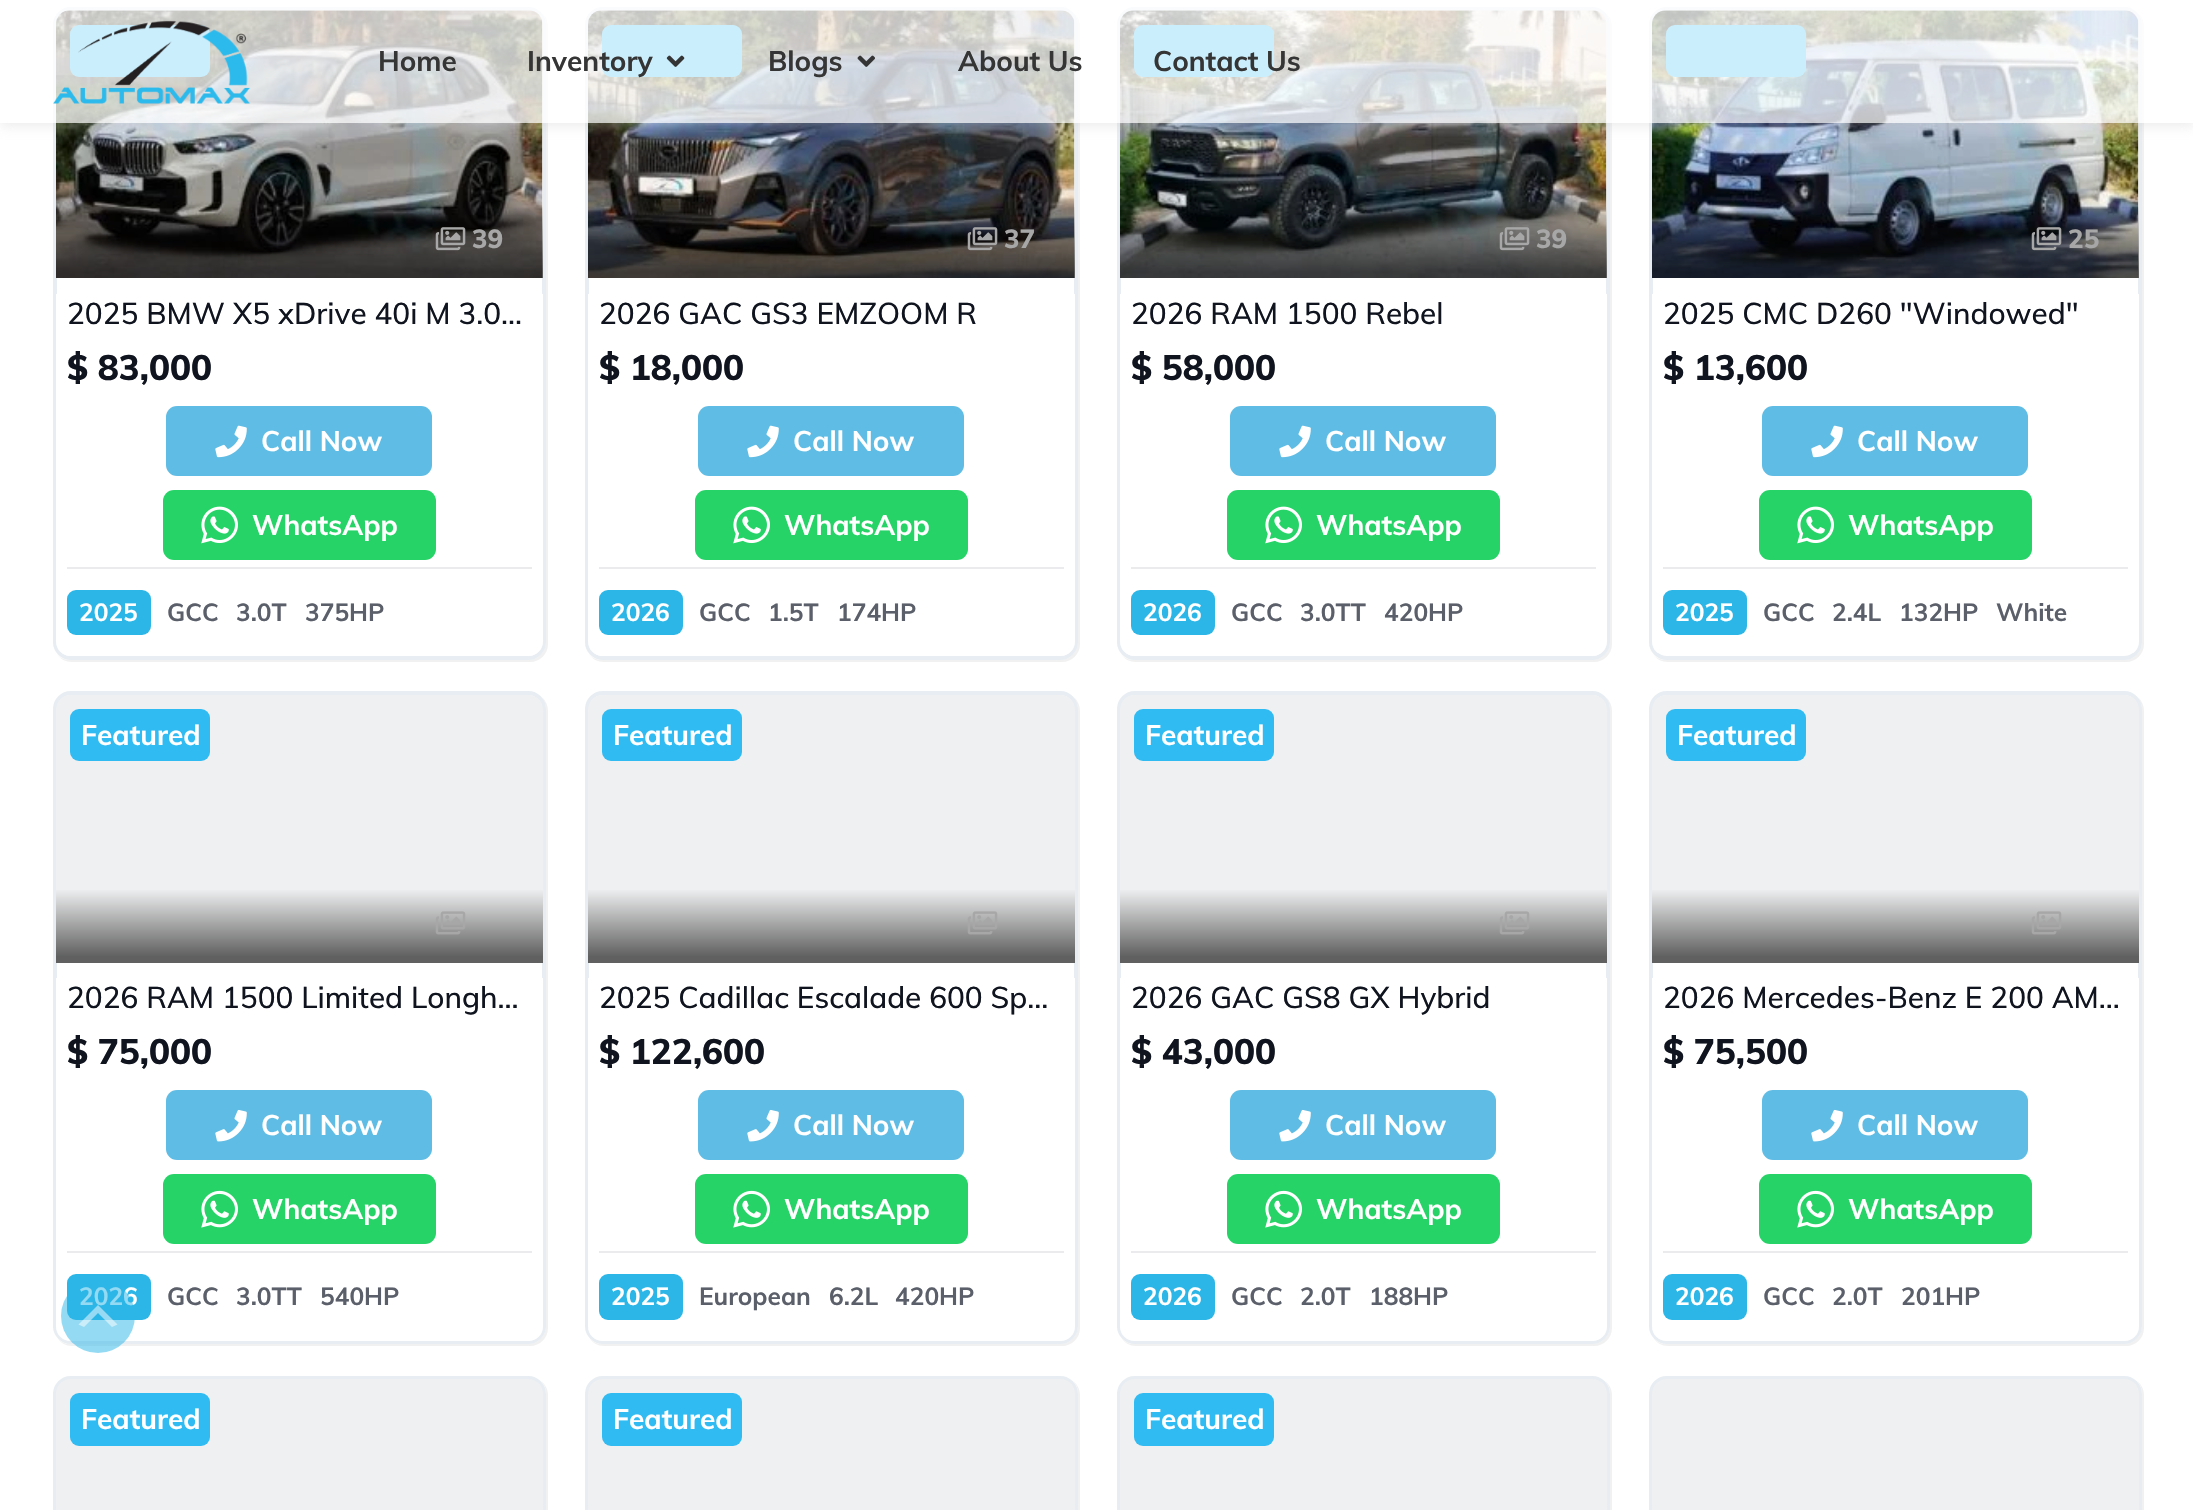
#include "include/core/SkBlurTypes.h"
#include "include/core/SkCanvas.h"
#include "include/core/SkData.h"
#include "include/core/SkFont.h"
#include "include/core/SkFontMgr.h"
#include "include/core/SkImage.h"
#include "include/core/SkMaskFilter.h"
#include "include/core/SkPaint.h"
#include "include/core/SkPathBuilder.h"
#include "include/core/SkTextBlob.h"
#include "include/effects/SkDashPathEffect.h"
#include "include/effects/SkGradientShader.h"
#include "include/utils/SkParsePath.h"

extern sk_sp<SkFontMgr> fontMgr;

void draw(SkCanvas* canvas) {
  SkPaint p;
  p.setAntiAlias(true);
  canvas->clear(SK_ColorWHITE);
  p.setColor(SkColorSetRGB(241, 241, 241));
  canvas->drawPath(SkPathBuilder().moveTo(57, 654).cubicTo(60, 659, 66, 662, 72, 662).lineTo(530, 662).cubicTo(540, 662, 548, 654, 548, 644).lineTo(548, 27).cubicTo(548, 22, 546, 17, 543, 14).cubicTo(545, 17, 546, 21, 546, 24).lineTo(546, 642).cubicTo(546, 652, 538, 660, 528, 660).lineTo(70, 660).cubicTo(65, 660, 60, 658, 57, 654).close().detach(), p);
  p.setColor(SK_ColorWHITE);
  canvas->drawRoundRect(SkRect::MakeLTRB(55, 9, 544, 658), 16, 16, p);
  p.setStyle(SkPaint::kStroke_Style);
  p.setStrokeWidth(4);
  p.setColor(SkColorSetRGB(231, 237, 243));
  canvas->drawRoundRect(SkRect::MakeLTRB(55, 9, 544, 658), 16, 16, p);
  p.setStyle(SkPaint::kFill_Style);
  p.setColor(SkColorSetRGB(239, 240, 241));
  canvas->drawPath(SkPathBuilder().moveTo(70, 11).lineTo(529, 11).cubicTo(536.5f, 11, 543, 17.5f, 543, 25).lineTo(543, 278).lineTo(56, 278).lineTo(56, 25).cubicTo(56, 17.5f, 62.5f, 11, 70, 11).close().detach(), p);
  canvas->drawImageRect(SkImages::DeferredFromEncodedData(SkData::MakeFromFileName("images/4.png")), SkRect::MakeLTRB(56, 10, 543, 278), SkSamplingOptions());
  p.setColor(SkColorSetRGB(48, 187, 242));
  canvas->drawRoundRect(SkRect::MakeLTRB(70, 25, 210, 77), 9, 9, p);
  p.setColor(SkColorSetRGB(241, 241, 241));
  canvas->drawPath(SkPathBuilder().moveTo(589, 654).cubicTo(592, 659, 598, 662, 604, 662).lineTo(1062, 662).cubicTo(1072, 662, 1080, 654, 1080, 644).lineTo(1080, 27).cubicTo(1080, 22, 1078, 17, 1075, 14).cubicTo(1077, 17, 1078, 21, 1078, 24).lineTo(1078, 642).cubicTo(1078, 652, 1070, 660, 1060, 660).lineTo(602, 660).cubicTo(597, 660, 592, 658, 589, 654).close().detach(), p);
  p.setColor(SK_ColorWHITE);
  canvas->drawRoundRect(SkRect::MakeLTRB(587, 9, 1076, 658), 16, 16, p);
  p.setStyle(SkPaint::kStroke_Style);
  p.setColor(SkColorSetRGB(231, 237, 243));
  canvas->drawRoundRect(SkRect::MakeLTRB(587, 9, 1076, 658), 16, 16, p);
  p.setStyle(SkPaint::kFill_Style);
  p.setColor(SkColorSetRGB(239, 240, 241));
  canvas->drawPath(SkPathBuilder().moveTo(602, 11).lineTo(1061, 11).cubicTo(1068.5f, 11, 1075, 17.5f, 1075, 25).lineTo(1075, 278).lineTo(588, 278).lineTo(588, 25).cubicTo(588, 17.5f, 594.5f, 11, 602, 11).close().detach(), p);
  canvas->drawImageRect(SkImages::DeferredFromEncodedData(SkData::MakeFromFileName("images/8.png")), SkRect::MakeLTRB(588, 10, 1075, 278), SkSamplingOptions());
  p.setColor(SkColorSetRGB(48, 187, 242));
  canvas->drawRoundRect(SkRect::MakeLTRB(602, 25, 742, 77), 9, 9, p);
  p.setColor(SkColorSetRGB(241, 241, 241));
  canvas->drawPath(SkPathBuilder().moveTo(1121, 654).cubicTo(1124, 659, 1130, 662, 1136, 662).lineTo(1594, 662).cubicTo(1604, 662, 1612, 654, 1612, 644).lineTo(1612, 27).cubicTo(1612, 22, 1610, 17, 1607, 14).cubicTo(1609, 17, 1610, 21, 1610, 24).lineTo(1610, 642).cubicTo(1610, 652, 1602, 660, 1592, 660).lineTo(1134, 660).cubicTo(1129, 660, 1124, 658, 1121, 654).close().detach(), p);
  p.setColor(SK_ColorWHITE);
  canvas->drawRoundRect(SkRect::MakeLTRB(1119, 9, 1608, 658), 16, 16, p);
  p.setStyle(SkPaint::kStroke_Style);
  p.setColor(SkColorSetRGB(231, 237, 243));
  canvas->drawRoundRect(SkRect::MakeLTRB(1119, 9, 1608, 658), 16, 16, p);
  p.setStyle(SkPaint::kFill_Style);
  p.setColor(SkColorSetRGB(239, 240, 241));
  canvas->drawPath(SkPathBuilder().moveTo(1134, 11).lineTo(1593, 11).cubicTo(1600.5f, 11, 1607, 17.5f, 1607, 25).lineTo(1607, 278).lineTo(1120, 278).lineTo(1120, 25).cubicTo(1120, 17.5f, 1126.5f, 11, 1134, 11).close().detach(), p);
  canvas->drawImageRect(SkImages::DeferredFromEncodedData(SkData::MakeFromFileName("images/10.png")), SkRect::MakeLTRB(1120, 10, 1607, 278), SkSamplingOptions());
  p.setColor(SkColorSetRGB(48, 187, 242));
  canvas->drawRoundRect(SkRect::MakeLTRB(1134, 25, 1274, 77), 9, 9, p);
  p.setColor(SkColorSetRGB(241, 241, 241));
  canvas->drawPath(SkPathBuilder().moveTo(1653, 654).cubicTo(1656, 659, 1662, 662, 1668, 662).lineTo(2126, 662).cubicTo(2136, 662, 2144, 654, 2144, 644).lineTo(2144, 27).cubicTo(2144, 22, 2142, 17, 2139, 14).cubicTo(2141, 17, 2142, 21, 2142, 24).lineTo(2142, 642).cubicTo(2142, 652, 2134, 660, 2124, 660).lineTo(1666, 660).cubicTo(1661, 660, 1656, 658, 1653, 654).close().detach(), p);
  p.setColor(SK_ColorWHITE);
  canvas->drawRoundRect(SkRect::MakeLTRB(1651, 9, 2140, 658), 16, 16, p);
  p.setStyle(SkPaint::kStroke_Style);
  p.setColor(SkColorSetRGB(231, 237, 243));
  canvas->drawRoundRect(SkRect::MakeLTRB(1651, 9, 2140, 658), 16, 16, p);
  p.setStyle(SkPaint::kFill_Style);
  p.setColor(SkColorSetRGB(239, 240, 241));
  canvas->drawPath(SkPathBuilder().moveTo(1666, 11).lineTo(2125, 11).cubicTo(2132.5f, 11, 2139, 17.5f, 2139, 25).lineTo(2139, 278).lineTo(1652, 278).lineTo(1652, 25).cubicTo(1652, 17.5f, 1658.5f, 11, 1666, 11).close().detach(), p);
  canvas->drawImageRect(SkImages::DeferredFromEncodedData(SkData::MakeFromFileName("images/12.png")), SkRect::MakeLTRB(1652, 10, 2139, 278), SkSamplingOptions());
  p.setColor(SkColorSetRGB(48, 187, 242));
  canvas->drawRoundRect(SkRect::MakeLTRB(1666, 25, 1806, 77), 9, 9, p);
  canvas->save();
  canvas->clipPath(SkPathBuilder(SkPathFillType::kEvenOdd).moveTo(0, 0).lineTo(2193, 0).lineTo(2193, 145).lineTo(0, 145).close().moveTo(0, 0).lineTo(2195, 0).lineTo(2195, 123).lineTo(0, 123).close().detach(), true);
  p.setColor(SkColorSetARGB(87, 196, 196, 196));
  p.setMaskFilter(SkMaskFilter::MakeBlur(kNormal_SkBlurStyle, 6));
  canvas->drawRect(SkRect::MakeLTRB(0, 4, 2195, 126), p);
  p.setMaskFilter(nullptr);
  canvas->restore();
  p.setColor(SkColorSetARGB(191, 255, 255, 255));
  canvas->drawRect(SkRect::MakeLTRB(0, 7, 2193, 123), p);
  canvas->drawImageRect(SkImages::DeferredFromEncodedData(SkData::MakeFromFileName("images/1.png")), SkRect::MakeLTRB(53, 20, 251, 104), SkSamplingOptions());
  canvas->drawImageRect(SkImages::DeferredFromEncodedData(SkData::MakeFromFileName("images/2.png")), SkRect::MakeLTRB(666, 55, 685, 67), SkSamplingOptions());
  canvas->drawImageRect(SkImages::DeferredFromEncodedData(SkData::MakeFromFileName("images/3.png")), SkRect::MakeLTRB(857, 55, 875, 67), SkSamplingOptions());
  {
    const SkColor colors[] = {SkColorSetARGB(153, 0, 0, 0), SkColorSetARGB(0, 0, 0, 0)};
    const float stops[] = {0.08f, 0.94f};
    const SkPoint ends[] = {{299, 278}, {299, 200}};
    p.setShader(SkGradientShader::MakeLinear(ends, colors, stops, 2, SkTileMode::kClamp));
    p.setAlpha(255);
  }
  canvas->drawRect(SkRect::MakeLTRB(56, 207, 543, 278), p);
  canvas->drawImageRect(SkImages::DeferredFromEncodedData(SkData::MakeFromFileName("images/5.png")), SkRect::MakeLTRB(435, 227, 466, 251), SkSamplingOptions());
  p.setShader(nullptr);
  p.setColor(SK_ColorWHITE);
  canvas->drawPath(SkPathBuilder().moveTo(56, 294).lineTo(543, 294).lineTo(543, 642).cubicTo(543, 649.5f, 536.5f, 656, 529, 656).lineTo(70, 656).cubicTo(62.5f, 656, 56, 649.5f, 56, 642).close().detach(), p);
  p.setColor(SkColorSetRGB(95, 188, 228));
  canvas->drawRoundRect(SkRect::MakeLTRB(166, 406, 432, 476), 11, 11, p);
  canvas->drawImageRect(SkImages::DeferredFromEncodedData(SkData::MakeFromFileName("images/6.png")), SkRect::MakeLTRB(215, 425, 247, 458), SkSamplingOptions());
  p.setColor(SkColorSetRGB(37, 211, 102));
  canvas->drawRoundRect(SkRect::MakeLTRB(163, 490, 436, 560), 11, 11, p);
  canvas->drawImageRect(SkImages::DeferredFromEncodedData(SkData::MakeFromFileName("images/7.png")), SkRect::MakeLTRB(201, 506, 238, 544), SkSamplingOptions());
  p.setColor(SkColorSetRGB(235, 235, 237));
  canvas->drawRect(SkRect::MakeLTRB(67, 567, 532, 569), p);
  p.setColor(SkColorSetRGB(43, 182, 231));
  canvas->drawRoundRect(SkRect::MakeLTRB(67, 590, 151, 635), 9, 9, p);
  {
    const SkColor colors[] = {SkColorSetARGB(153, 0, 0, 0), SkColorSetARGB(0, 0, 0, 0)};
    const float stops[] = {0.08f, 0.94f};
    const SkPoint ends[] = {{831, 278}, {831, 200}};
    p.setShader(SkGradientShader::MakeLinear(ends, colors, stops, 2, SkTileMode::kClamp));
    p.setAlpha(255);
  }
  canvas->drawRect(SkRect::MakeLTRB(588, 207, 1075, 278), p);
  canvas->drawImageRect(SkImages::DeferredFromEncodedData(SkData::MakeFromFileName("images/9.png")), SkRect::MakeLTRB(967, 227, 998, 251), SkSamplingOptions());
  p.setShader(nullptr);
  p.setColor(SK_ColorWHITE);
  canvas->drawPath(SkPathBuilder().moveTo(588, 294).lineTo(1075, 294).lineTo(1075, 642).cubicTo(1075, 649.5f, 1068.5f, 656, 1061, 656).lineTo(602, 656).cubicTo(594.5f, 656, 588, 649.5f, 588, 642).close().detach(), p);
  p.setColor(SkColorSetRGB(95, 188, 228));
  canvas->drawRoundRect(SkRect::MakeLTRB(698, 406, 964, 476), 11, 11, p);
  canvas->drawImageRect(SkImages::DeferredFromEncodedData(SkData::MakeFromFileName("images/6.png")), SkRect::MakeLTRB(747, 425, 779, 458), SkSamplingOptions());
  p.setColor(SkColorSetRGB(37, 211, 102));
  canvas->drawRoundRect(SkRect::MakeLTRB(695, 490, 968, 560), 11, 11, p);
  canvas->drawImageRect(SkImages::DeferredFromEncodedData(SkData::MakeFromFileName("images/7.png")), SkRect::MakeLTRB(733, 506, 770, 544), SkSamplingOptions());
  p.setColor(SkColorSetRGB(235, 235, 237));
  canvas->drawRect(SkRect::MakeLTRB(599, 567, 1064, 569), p);
  p.setColor(SkColorSetRGB(43, 182, 231));
  canvas->drawRoundRect(SkRect::MakeLTRB(599, 590, 683, 635), 9, 9, p);
  {
    const SkColor colors[] = {SkColorSetARGB(153, 0, 0, 0), SkColorSetARGB(0, 0, 0, 0)};
    const float stops[] = {0.08f, 0.94f};
    const SkPoint ends[] = {{1363, 278}, {1363, 200}};
    p.setShader(SkGradientShader::MakeLinear(ends, colors, stops, 2, SkTileMode::kClamp));
    p.setAlpha(255);
  }
  canvas->drawRect(SkRect::MakeLTRB(1120, 207, 1607, 278), p);
  canvas->drawImageRect(SkImages::DeferredFromEncodedData(SkData::MakeFromFileName("images/11.png")), SkRect::MakeLTRB(1499, 227, 1530, 251), SkSamplingOptions());
  p.setShader(nullptr);
  p.setColor(SK_ColorWHITE);
  canvas->drawPath(SkPathBuilder().moveTo(1120, 294).lineTo(1607, 294).lineTo(1607, 642).cubicTo(1607, 649.5f, 1600.5f, 656, 1593, 656).lineTo(1134, 656).cubicTo(1126.5f, 656, 1120, 649.5f, 1120, 642).close().detach(), p);
  p.setColor(SkColorSetRGB(95, 188, 228));
  canvas->drawRoundRect(SkRect::MakeLTRB(1230, 406, 1496, 476), 11, 11, p);
  canvas->drawImageRect(SkImages::DeferredFromEncodedData(SkData::MakeFromFileName("images/6.png")), SkRect::MakeLTRB(1279, 425, 1311, 458), SkSamplingOptions());
  p.setColor(SkColorSetRGB(37, 211, 102));
  canvas->drawRoundRect(SkRect::MakeLTRB(1227, 490, 1500, 560), 11, 11, p);
  canvas->drawImageRect(SkImages::DeferredFromEncodedData(SkData::MakeFromFileName("images/7.png")), SkRect::MakeLTRB(1265, 506, 1302, 544), SkSamplingOptions());
  p.setColor(SkColorSetRGB(235, 235, 237));
  canvas->drawRect(SkRect::MakeLTRB(1131, 567, 1596, 569), p);
  p.setColor(SkColorSetRGB(43, 182, 231));
  canvas->drawRoundRect(SkRect::MakeLTRB(1131, 590, 1215, 635), 9, 9, p);
  {
    const SkColor colors[] = {SkColorSetARGB(153, 0, 0, 0), SkColorSetARGB(0, 0, 0, 0)};
    const float stops[] = {0.08f, 0.94f};
    const SkPoint ends[] = {{1895, 278}, {1895, 200}};
    p.setShader(SkGradientShader::MakeLinear(ends, colors, stops, 2, SkTileMode::kClamp));
    p.setAlpha(255);
  }
  canvas->drawRect(SkRect::MakeLTRB(1652, 207, 2139, 278), p);
  canvas->drawImageRect(SkImages::DeferredFromEncodedData(SkData::MakeFromFileName("images/13.png")), SkRect::MakeLTRB(2031, 227, 2062, 251), SkSamplingOptions());
  canvas->save();
  canvas->clipPath(SkPathBuilder().moveTo(1666, 11).lineTo(2125, 11).cubicTo(2132.5f, 11, 2139, 17.5f, 2139, 25).lineTo(2139, 642).cubicTo(2139, 649.5f, 2132.5f, 656, 2125, 656).lineTo(1666, 656).cubicTo(1658.5f, 656, 1652, 649.5f, 1652, 642).lineTo(1652, 25).cubicTo(1652, 17.5f, 1658.5f, 11, 1666, 11).close().detach(), true);
  p.setShader(nullptr);
  p.setColor(SK_ColorWHITE);
  canvas->drawRect(SkRect::MakeLTRB(1652, 294, 2139, 653), p);
  canvas->restore();
  p.setColor(SkColorSetRGB(95, 188, 228));
  canvas->drawRoundRect(SkRect::MakeLTRB(1762, 406, 2028, 476), 11, 11, p);
  canvas->drawImageRect(SkImages::DeferredFromEncodedData(SkData::MakeFromFileName("images/6.png")), SkRect::MakeLTRB(1811, 425, 1843, 458), SkSamplingOptions());
  p.setColor(SkColorSetRGB(37, 211, 102));
  canvas->drawRoundRect(SkRect::MakeLTRB(1759, 490, 2032, 560), 11, 11, p);
  canvas->drawImageRect(SkImages::DeferredFromEncodedData(SkData::MakeFromFileName("images/7.png")), SkRect::MakeLTRB(1797, 506, 1834, 544), SkSamplingOptions());
  p.setColor(SkColorSetRGB(235, 235, 237));
  canvas->drawRect(SkRect::MakeLTRB(1663, 567, 2128, 569), p);
  p.setColor(SkColorSetRGB(43, 182, 231));
  canvas->drawRoundRect(SkRect::MakeLTRB(1663, 590, 1747, 635), 9, 9, p);
  p.setColor(SkColorSetRGB(241, 241, 241));
  canvas->drawPath(SkPathBuilder().moveTo(58, 1339).cubicTo(61, 1343, 66, 1346, 72, 1346).lineTo(530, 1346).cubicTo(540, 1346, 548, 1338, 548, 1328).lineTo(548, 711).cubicTo(548, 706, 546, 701, 542, 697).cubicTo(544, 701, 546, 704, 546, 709).lineTo(546, 1326).cubicTo(546, 1336, 538, 1344, 528, 1344).lineTo(70, 1344).cubicTo(65, 1344, 61, 1342, 58, 1339).close().detach(), p);
  p.setColor(SK_ColorWHITE);
  canvas->drawRoundRect(SkRect::MakeLTRB(55, 693, 544, 1342), 16, 16, p);
  p.setStyle(SkPaint::kStroke_Style);
  p.setColor(SkColorSetRGB(231, 237, 243));
  canvas->drawRoundRect(SkRect::MakeLTRB(55, 693, 544, 1342), 16, 16, p);
  p.setStyle(SkPaint::kFill_Style);
  p.setColor(SkColorSetRGB(239, 240, 241));
  canvas->drawPath(SkPathBuilder().moveTo(70, 695).lineTo(529, 695).cubicTo(536.5f, 695, 543, 701.5f, 543, 709).lineTo(543, 963).lineTo(56, 963).lineTo(56, 709).cubicTo(56, 701.5f, 62.5f, 695, 70, 695).close().detach(), p);
  p.setColor(SkColorSetRGB(48, 187, 242));
  canvas->drawRoundRect(SkRect::MakeLTRB(70, 709, 210, 761), 9, 9, p);
  {
    const SkColor colors[] = {SkColorSetRGB(96, 96, 96), SkColorSetRGB(239, 240, 241)};
    const float stops[] = {0.08f, 0.94f};
    const SkPoint ends[] = {{299, 963}, {299, 884}};
    p.setShader(SkGradientShader::MakeLinear(ends, colors, stops, 2, SkTileMode::kClamp));
    p.setAlpha(255);
  }
  canvas->drawRect(SkRect::MakeLTRB(56, 890, 543, 963), p);
  canvas->drawImageRect(SkImages::DeferredFromEncodedData(SkData::MakeFromFileName("images/14.png")), SkRect::MakeLTRB(435, 911, 466, 935), SkSamplingOptions());
  p.setShader(nullptr);
  p.setColor(SK_ColorWHITE);
  canvas->drawPath(SkPathBuilder().moveTo(56, 978).lineTo(543, 978).lineTo(543, 1327).cubicTo(543, 1334.5f, 536.5f, 1341, 529, 1341).lineTo(70, 1341).cubicTo(62.5f, 1341, 56, 1334.5f, 56, 1327).close().detach(), p);
  p.setColor(SkColorSetRGB(95, 188, 228));
  canvas->drawRoundRect(SkRect::MakeLTRB(166, 1090, 432, 1160), 11, 11, p);
  canvas->drawImageRect(SkImages::DeferredFromEncodedData(SkData::MakeFromFileName("images/15.png")), SkRect::MakeLTRB(215, 1109, 247, 1142), SkSamplingOptions());
  p.setColor(SkColorSetRGB(37, 211, 102));
  canvas->drawRoundRect(SkRect::MakeLTRB(163, 1174, 436, 1244), 11, 11, p);
  canvas->drawImageRect(SkImages::DeferredFromEncodedData(SkData::MakeFromFileName("images/16.png")), SkRect::MakeLTRB(201, 1190, 238, 1228), SkSamplingOptions());
  p.setColor(SkColorSetRGB(235, 235, 237));
  canvas->drawRect(SkRect::MakeLTRB(67, 1251, 532, 1253), p);
  p.setColor(SkColorSetRGB(43, 182, 231));
  canvas->drawRoundRect(SkRect::MakeLTRB(67, 1274, 151, 1320), 9, 9, p);
  p.setColor(SkColorSetRGB(241, 241, 241));
  canvas->drawPath(SkPathBuilder().moveTo(590, 1339).cubicTo(593, 1343, 598, 1346, 604, 1346).lineTo(1062, 1346).cubicTo(1072, 1346, 1080, 1338, 1080, 1328).lineTo(1080, 711).cubicTo(1080, 706, 1078, 701, 1074, 697).cubicTo(1076, 701, 1078, 704, 1078, 709).lineTo(1078, 1326).cubicTo(1078, 1336, 1070, 1344, 1060, 1344).lineTo(602, 1344).cubicTo(597, 1344, 593, 1342, 590, 1339).close().detach(), p);
  p.setColor(SK_ColorWHITE);
  canvas->drawRoundRect(SkRect::MakeLTRB(587, 693, 1076, 1342), 16, 16, p);
  p.setStyle(SkPaint::kStroke_Style);
  p.setColor(SkColorSetRGB(231, 237, 243));
  canvas->drawRoundRect(SkRect::MakeLTRB(587, 693, 1076, 1342), 16, 16, p);
  p.setStyle(SkPaint::kFill_Style);
  p.setColor(SkColorSetRGB(239, 240, 241));
  canvas->drawPath(SkPathBuilder().moveTo(602, 695).lineTo(1061, 695).cubicTo(1068.5f, 695, 1075, 701.5f, 1075, 709).lineTo(1075, 963).lineTo(588, 963).lineTo(588, 709).cubicTo(588, 701.5f, 594.5f, 695, 602, 695).close().detach(), p);
  p.setColor(SkColorSetRGB(48, 187, 242));
  canvas->drawRoundRect(SkRect::MakeLTRB(602, 709, 742, 761), 9, 9, p);
  {
    const SkColor colors[] = {SkColorSetRGB(96, 96, 96), SkColorSetRGB(239, 240, 241)};
    const float stops[] = {0.08f, 0.94f};
    const SkPoint ends[] = {{831, 963}, {831, 884}};
    p.setShader(SkGradientShader::MakeLinear(ends, colors, stops, 2, SkTileMode::kClamp));
    p.setAlpha(255);
  }
  canvas->drawRect(SkRect::MakeLTRB(588, 890, 1075, 963), p);
  canvas->drawImageRect(SkImages::DeferredFromEncodedData(SkData::MakeFromFileName("images/14.png")), SkRect::MakeLTRB(967, 911, 998, 935), SkSamplingOptions());
  p.setShader(nullptr);
  p.setColor(SK_ColorWHITE);
  canvas->drawPath(SkPathBuilder().moveTo(588, 978).lineTo(1075, 978).lineTo(1075, 1327).cubicTo(1075, 1334.5f, 1068.5f, 1341, 1061, 1341).lineTo(602, 1341).cubicTo(594.5f, 1341, 588, 1334.5f, 588, 1327).close().detach(), p);
  p.setColor(SkColorSetRGB(95, 188, 228));
  canvas->drawRoundRect(SkRect::MakeLTRB(698, 1090, 964, 1160), 11, 11, p);
  canvas->drawImageRect(SkImages::DeferredFromEncodedData(SkData::MakeFromFileName("images/15.png")), SkRect::MakeLTRB(747, 1109, 779, 1142), SkSamplingOptions());
  p.setColor(SkColorSetRGB(37, 211, 102));
  canvas->drawRoundRect(SkRect::MakeLTRB(695, 1174, 968, 1244), 11, 11, p);
  canvas->drawImageRect(SkImages::DeferredFromEncodedData(SkData::MakeFromFileName("images/16.png")), SkRect::MakeLTRB(733, 1190, 770, 1228), SkSamplingOptions());
  p.setColor(SkColorSetRGB(235, 235, 237));
  canvas->drawRect(SkRect::MakeLTRB(599, 1251, 1064, 1253), p);
  p.setColor(SkColorSetRGB(43, 182, 231));
  canvas->drawRoundRect(SkRect::MakeLTRB(599, 1274, 683, 1320), 9, 9, p);
  p.setColor(SkColorSetRGB(241, 241, 241));
  canvas->drawPath(SkPathBuilder().moveTo(1122, 1339).cubicTo(1125, 1343, 1130, 1346, 1136, 1346).lineTo(1594, 1346).cubicTo(1604, 1346, 1612, 1338, 1612, 1328).lineTo(1612, 711).cubicTo(1612, 706, 1610, 701, 1606, 697).cubicTo(1608, 701, 1610, 704, 1610, 709).lineTo(1610, 1326).cubicTo(1610, 1336, 1602, 1344, 1592, 1344).lineTo(1134, 1344).cubicTo(1129, 1344, 1125, 1342, 1122, 1339).close().detach(), p);
  p.setColor(SK_ColorWHITE);
  canvas->drawRoundRect(SkRect::MakeLTRB(1119, 693, 1608, 1342), 16, 16, p);
  p.setStyle(SkPaint::kStroke_Style);
  p.setColor(SkColorSetRGB(231, 237, 243));
  canvas->drawRoundRect(SkRect::MakeLTRB(1119, 693, 1608, 1342), 16, 16, p);
  p.setStyle(SkPaint::kFill_Style);
  p.setColor(SkColorSetRGB(239, 240, 241));
  canvas->drawPath(SkPathBuilder().moveTo(1134, 695).lineTo(1593, 695).cubicTo(1600.5f, 695, 1607, 701.5f, 1607, 709).lineTo(1607, 963).lineTo(1120, 963).lineTo(1120, 709).cubicTo(1120, 701.5f, 1126.5f, 695, 1134, 695).close().detach(), p);
  p.setColor(SkColorSetRGB(48, 187, 242));
  canvas->drawRoundRect(SkRect::MakeLTRB(1134, 709, 1274, 761), 9, 9, p);
  {
    const SkColor colors[] = {SkColorSetRGB(96, 96, 96), SkColorSetRGB(239, 240, 241)};
    const float stops[] = {0.08f, 0.94f};
    const SkPoint ends[] = {{1363, 963}, {1363, 884}};
    p.setShader(SkGradientShader::MakeLinear(ends, colors, stops, 2, SkTileMode::kClamp));
    p.setAlpha(255);
  }
  canvas->drawRect(SkRect::MakeLTRB(1120, 890, 1607, 963), p);
  canvas->drawImageRect(SkImages::DeferredFromEncodedData(SkData::MakeFromFileName("images/14.png")), SkRect::MakeLTRB(1499, 911, 1530, 935), SkSamplingOptions());
  p.setShader(nullptr);
  p.setColor(SK_ColorWHITE);
  canvas->drawPath(SkPathBuilder().moveTo(1120, 978).lineTo(1607, 978).lineTo(1607, 1327).cubicTo(1607, 1334.5f, 1600.5f, 1341, 1593, 1341).lineTo(1134, 1341).cubicTo(1126.5f, 1341, 1120, 1334.5f, 1120, 1327).close().detach(), p);
  p.setColor(SkColorSetRGB(95, 188, 228));
  canvas->drawRoundRect(SkRect::MakeLTRB(1230, 1090, 1496, 1160), 11, 11, p);
  canvas->drawImageRect(SkImages::DeferredFromEncodedData(SkData::MakeFromFileName("images/15.png")), SkRect::MakeLTRB(1279, 1109, 1311, 1142), SkSamplingOptions());
  p.setColor(SkColorSetRGB(37, 211, 102));
  canvas->drawRoundRect(SkRect::MakeLTRB(1227, 1174, 1500, 1244), 11, 11, p);
  canvas->drawImageRect(SkImages::DeferredFromEncodedData(SkData::MakeFromFileName("images/16.png")), SkRect::MakeLTRB(1265, 1190, 1302, 1228), SkSamplingOptions());
  p.setColor(SkColorSetRGB(235, 235, 237));
  canvas->drawRect(SkRect::MakeLTRB(1131, 1251, 1596, 1253), p);
  p.setColor(SkColorSetRGB(43, 182, 231));
  canvas->drawRoundRect(SkRect::MakeLTRB(1131, 1274, 1215, 1320), 9, 9, p);
  p.setColor(SkColorSetRGB(241, 241, 241));
  canvas->drawPath(SkPathBuilder().moveTo(1654, 1339).cubicTo(1657, 1343, 1662, 1346, 1668, 1346).lineTo(2126, 1346).cubicTo(2136, 1346, 2144, 1338, 2144, 1328).lineTo(2144, 711).cubicTo(2144, 706, 2142, 701, 2138, 697).cubicTo(2140, 701, 2142, 704, 2142, 709).lineTo(2142, 1326).cubicTo(2142, 1336, 2134, 1344, 2124, 1344).lineTo(1666, 1344).cubicTo(1661, 1344, 1657, 1342, 1654, 1339).close().detach(), p);
  p.setColor(SK_ColorWHITE);
  canvas->drawRoundRect(SkRect::MakeLTRB(1651, 693, 2140, 1342), 16, 16, p);
  p.setStyle(SkPaint::kStroke_Style);
  p.setColor(SkColorSetRGB(231, 237, 243));
  canvas->drawRoundRect(SkRect::MakeLTRB(1651, 693, 2140, 1342), 16, 16, p);
  p.setStyle(SkPaint::kFill_Style);
  p.setColor(SkColorSetRGB(239, 240, 241));
  canvas->drawPath(SkPathBuilder().moveTo(1666, 695).lineTo(2125, 695).cubicTo(2132.5f, 695, 2139, 701.5f, 2139, 709).lineTo(2139, 963).lineTo(1652, 963).lineTo(1652, 709).cubicTo(1652, 701.5f, 1658.5f, 695, 1666, 695).close().detach(), p);
  p.setColor(SkColorSetRGB(48, 187, 242));
  canvas->drawRoundRect(SkRect::MakeLTRB(1666, 709, 1806, 761), 9, 9, p);
  {
    const SkColor colors[] = {SkColorSetRGB(96, 96, 96), SkColorSetRGB(239, 240, 241)};
    const float stops[] = {0.08f, 0.94f};
    const SkPoint ends[] = {{1895, 963}, {1895, 884}};
    p.setShader(SkGradientShader::MakeLinear(ends, colors, stops, 2, SkTileMode::kClamp));
    p.setAlpha(255);
  }
  canvas->drawRect(SkRect::MakeLTRB(1652, 890, 2139, 963), p);
  canvas->drawImageRect(SkImages::DeferredFromEncodedData(SkData::MakeFromFileName("images/14.png")), SkRect::MakeLTRB(2031, 911, 2062, 935), SkSamplingOptions());
  p.setShader(nullptr);
  p.setColor(SK_ColorWHITE);
  canvas->drawPath(SkPathBuilder().moveTo(1652, 978).lineTo(2139, 978).lineTo(2139, 1327).cubicTo(2139, 1334.5f, 2132.5f, 1341, 2125, 1341).lineTo(1666, 1341).cubicTo(1658.5f, 1341, 1652, 1334.5f, 1652, 1327).close().detach(), p);
  p.setColor(SkColorSetRGB(95, 188, 228));
  canvas->drawRoundRect(SkRect::MakeLTRB(1762, 1090, 2028, 1160), 11, 11, p);
  canvas->drawImageRect(SkImages::DeferredFromEncodedData(SkData::MakeFromFileName("images/15.png")), SkRect::MakeLTRB(1811, 1109, 1843, 1142), SkSamplingOptions());
  p.setColor(SkColorSetRGB(37, 211, 102));
  canvas->drawRoundRect(SkRect::MakeLTRB(1759, 1174, 2032, 1244), 11, 11, p);
  canvas->drawImageRect(SkImages::DeferredFromEncodedData(SkData::MakeFromFileName("images/16.png")), SkRect::MakeLTRB(1797, 1190, 1834, 1228), SkSamplingOptions());
  p.setColor(SkColorSetRGB(235, 235, 237));
  canvas->drawRect(SkRect::MakeLTRB(1663, 1251, 2128, 1253), p);
  p.setColor(SkColorSetRGB(43, 182, 231));
  canvas->drawRoundRect(SkRect::MakeLTRB(1663, 1274, 1747, 1320), 9, 9, p);
  p.setColor(SkColorSetRGB(241, 241, 241));
  canvas->drawPath(SkPathBuilder().moveTo(59, 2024).cubicTo(62, 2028, 67, 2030, 72, 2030).lineTo(530, 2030).cubicTo(540, 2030, 548, 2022, 548, 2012).lineTo(548, 1395).cubicTo(548, 1389, 545, 1384, 541, 1381).cubicTo(544, 1384, 546, 1388, 546, 1393).lineTo(546, 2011).cubicTo(546, 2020, 538, 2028, 528, 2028).lineTo(70, 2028).cubicTo(66, 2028, 62, 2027, 59, 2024).close().detach(), p);
  p.setStyle(SkPaint::kStroke_Style);
  p.setColor(SkColorSetRGB(231, 237, 243));
  canvas->drawRoundRect(SkRect::MakeLTRB(55, 1378, 544, 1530), 16, 16, p);
  p.setStyle(SkPaint::kFill_Style);
  p.setColor(SkColorSetRGB(239, 240, 241));
  canvas->drawPath(SkPathBuilder().moveTo(70, 1379).lineTo(529, 1379).cubicTo(536.5f, 1379, 543, 1385.5f, 543, 1393).lineTo(543, 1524).lineTo(56, 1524).lineTo(56, 1393).cubicTo(56, 1385.5f, 62.5f, 1379, 70, 1379).close().detach(), p);
  p.setColor(SkColorSetRGB(48, 187, 242));
  canvas->drawRoundRect(SkRect::MakeLTRB(70, 1393, 210, 1446), 9, 9, p);
  p.setColor(SkColorSetRGB(241, 241, 241));
  canvas->drawPath(SkPathBuilder().moveTo(591, 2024).cubicTo(594, 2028, 599, 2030, 604, 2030).lineTo(1062, 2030).cubicTo(1072, 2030, 1080, 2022, 1080, 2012).lineTo(1080, 1395).cubicTo(1080, 1389, 1077, 1384, 1073, 1381).cubicTo(1076, 1384, 1078, 1388, 1078, 1393).lineTo(1078, 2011).cubicTo(1078, 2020, 1070, 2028, 1060, 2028).lineTo(602, 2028).cubicTo(598, 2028, 594, 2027, 591, 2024).close().detach(), p);
  p.setStyle(SkPaint::kStroke_Style);
  p.setColor(SkColorSetRGB(231, 237, 243));
  canvas->drawRoundRect(SkRect::MakeLTRB(587, 1378, 1076, 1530), 16, 16, p);
  p.setStyle(SkPaint::kFill_Style);
  p.setColor(SkColorSetRGB(239, 240, 241));
  canvas->drawPath(SkPathBuilder().moveTo(602, 1379).lineTo(1061, 1379).cubicTo(1068.5f, 1379, 1075, 1385.5f, 1075, 1393).lineTo(1075, 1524).lineTo(588, 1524).lineTo(588, 1393).cubicTo(588, 1385.5f, 594.5f, 1379, 602, 1379).close().detach(), p);
  p.setColor(SkColorSetRGB(48, 187, 242));
  canvas->drawRoundRect(SkRect::MakeLTRB(602, 1393, 742, 1446), 9, 9, p);
  p.setColor(SkColorSetRGB(241, 241, 241));
  canvas->drawPath(SkPathBuilder().moveTo(1123, 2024).cubicTo(1126, 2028, 1131, 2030, 1136, 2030).lineTo(1594, 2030).cubicTo(1604, 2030, 1612, 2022, 1612, 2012).lineTo(1612, 1395).cubicTo(1612, 1389, 1609, 1384, 1605, 1381).cubicTo(1608, 1384, 1610, 1388, 1610, 1393).lineTo(1610, 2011).cubicTo(1610, 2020, 1602, 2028, 1592, 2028).lineTo(1134, 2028).cubicTo(1130, 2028, 1126, 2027, 1123, 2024).close().detach(), p);
  p.setStyle(SkPaint::kStroke_Style);
  p.setColor(SkColorSetRGB(231, 237, 243));
  canvas->drawRoundRect(SkRect::MakeLTRB(1119, 1378, 1608, 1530), 16, 16, p);
  p.setStyle(SkPaint::kFill_Style);
  p.setColor(SkColorSetRGB(239, 240, 241));
  canvas->drawPath(SkPathBuilder().moveTo(1134, 1379).lineTo(1593, 1379).cubicTo(1600.5f, 1379, 1607, 1385.5f, 1607, 1393).lineTo(1607, 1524).lineTo(1120, 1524).lineTo(1120, 1393).cubicTo(1120, 1385.5f, 1126.5f, 1379, 1134, 1379).close().detach(), p);
  p.setColor(SkColorSetRGB(48, 187, 242));
  canvas->drawRoundRect(SkRect::MakeLTRB(1134, 1393, 1274, 1446), 9, 9, p);
  p.setColor(SkColorSetRGB(241, 241, 241));
  canvas->drawPath(SkPathBuilder().moveTo(1655, 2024).cubicTo(1658, 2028, 1663, 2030, 1668, 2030).lineTo(2126, 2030).cubicTo(2136, 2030, 2144, 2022, 2144, 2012).lineTo(2144, 1395).cubicTo(2144, 1389, 2141, 1384, 2137, 1381).cubicTo(2140, 1384, 2142, 1388, 2142, 1393).lineTo(2142, 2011).cubicTo(2142, 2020, 2134, 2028, 2124, 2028).lineTo(1666, 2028).cubicTo(1662, 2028, 1658, 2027, 1655, 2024).close().detach(), p);
  p.setStyle(SkPaint::kStroke_Style);
  p.setColor(SkColorSetRGB(231, 237, 243));
  canvas->drawRoundRect(SkRect::MakeLTRB(1651, 1378, 2140, 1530), 16, 16, p);
  p.setStyle(SkPaint::kFill_Style);
  p.setColor(SkColorSetRGB(239, 240, 241));
  canvas->drawPath(SkPathBuilder().moveTo(1666, 1379).lineTo(2125, 1379).cubicTo(2132.5f, 1379, 2139, 1385.5f, 2139, 1393).lineTo(2139, 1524).lineTo(1652, 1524).lineTo(1652, 1393).cubicTo(1652, 1385.5f, 1658.5f, 1379, 1666, 1379).close().detach(), p);
  SkFont font1(fontMgr->matchFamilyStyle("Muli", SkFontStyle::Bold()), 28);
  font1.setSubpixel(true);
  p.setColor(SkColorSetRGB(53, 53, 53));
  canvas->drawString("Home", 378, 71, font1, p);
  canvas->drawString("Inventory", 527, 71, font1, p);
  canvas->drawString("Blogs", 768, 71, font1, p);
  canvas->drawString("About Us", 958, 71, font1, p);
  canvas->drawString("Contact Us", 1153, 71, font1, p);
  SkFont font2(fontMgr->matchFamilyStyle("Muli", SkFontStyle(800, SkFontStyle::kNormal_Width, SkFontStyle::kUpright_Slant)), 26);
  font2.setSubpixel(true);
  p.setColor(SkColorSetRGB(167, 167, 167));
  canvas->drawString("39", 472, 248, font2, p);
  SkFont font3(fontMgr->matchFamilyStyle("Muli", SkFontStyle(500, SkFontStyle::kNormal_Width, SkFontStyle::kUpright_Slant)), 29.75f);
  font3.setSubpixel(true);
  p.setColor(SkColorSetRGB(15, 20, 30));
  canvas->drawString("2025 BMW X5 xDrive 40i M 3.0…", 67, 324, font3, p);
  SkFont font4(fontMgr->matchFamilyStyle("Muli", SkFontStyle(800, SkFontStyle::kNormal_Width, SkFontStyle::kUpright_Slant)), 35);
  font4.setSubpixel(true);
  canvas->drawString("$ 83,000", 67, 380, font4, p);
  p.setColor(SK_ColorWHITE);
  canvas->drawString("Call Now", 261, 451, font1, p);
  canvas->drawString("WhatsApp", 252, 535, font1, p);
  SkFont font5(fontMgr->matchFamilyStyle("Muli", SkFontStyle::Bold()), 24.5f);
  font5.setSubpixel(true);
  canvas->drawString("2025", 79, 621, font5, p);
  p.setColor(SkColorSetRGB(90, 95, 105));
  canvas->drawString("GCC", 167, 621, font5, p);
  canvas->drawString("3.0T", 236, 621, font5, p);
  canvas->drawString("375HP", 305, 621, font5, p);
  p.setColor(SkColorSetRGB(167, 167, 167));
  canvas->drawString("37", 1004, 248, font2, p);
  p.setColor(SkColorSetRGB(15, 20, 30));
  canvas->drawString("2026 GAC GS3 EMZOOM R", 599, 324, font3, p);
  canvas->drawString("$ 18,000", 599, 380, font4, p);
  p.setColor(SK_ColorWHITE);
  canvas->drawString("Call Now", 793, 451, font1, p);
  canvas->drawString("WhatsApp", 784, 535, font1, p);
  canvas->drawString("2026", 611, 621, font5, p);
  p.setColor(SkColorSetRGB(90, 95, 105));
  canvas->drawString("GCC", 699, 621, font5, p);
  canvas->drawString("1.5T", 768, 621, font5, p);
  canvas->drawString("174HP", 837, 621, font5, p);
  p.setColor(SkColorSetRGB(167, 167, 167));
  canvas->drawString("39", 1536, 248, font2, p);
  p.setColor(SkColorSetRGB(15, 20, 30));
  canvas->drawString("2026 RAM 1500 Rebel", 1131, 324, font3, p);
  canvas->drawString("$ 58,000", 1131, 380, font4, p);
  p.setColor(SK_ColorWHITE);
  canvas->drawString("Call Now", 1325, 451, font1, p);
  canvas->drawString("WhatsApp", 1316, 535, font1, p);
  canvas->drawString("2026", 1143, 621, font5, p);
  p.setColor(SkColorSetRGB(90, 95, 105));
  canvas->drawString("GCC", 1231, 621, font5, p);
  canvas->drawString("3.0TT", 1300, 621, font5, p);
  canvas->drawString("420HP", 1384, 621, font5, p);
  p.setColor(SkColorSetRGB(167, 167, 167));
  canvas->drawString("25", 2068, 248, font2, p);
  p.setColor(SkColorSetRGB(15, 20, 30));
  canvas->drawString("2025 CMC D260 \"Windowed\"", 1663, 324, font3, p);
  canvas->drawString("$ 13,600", 1663, 380, font4, p);
  p.setColor(SK_ColorWHITE);
  canvas->drawString("Call Now", 1857, 451, font1, p);
  canvas->drawString("WhatsApp", 1848, 535, font1, p);
  canvas->drawString("2025", 1675, 621, font5, p);
  p.setColor(SkColorSetRGB(90, 95, 105));
  canvas->drawString("GCC", 1763, 621, font5, p);
  canvas->drawString("2.4L", 1832, 621, font5, p);
  canvas->drawString("132HP", 1899, 621, font5, p);
  canvas->drawString("White", 1996, 621, font5, p);
  p.setColor(SK_ColorWHITE);
  canvas->drawString("Featured", 81, 745, font1, p);
  p.setColor(SkColorSetRGB(15, 20, 30));
  canvas->drawString("2026 RAM 1500 Limited Longh…", 67, 1008, font3, p);
  canvas->drawString("$ 75,000", 67, 1064, font4, p);
  p.setColor(SK_ColorWHITE);
  canvas->drawString("Call Now", 261, 1135, font1, p);
  canvas->drawString("WhatsApp", 252, 1219, font1, p);
  canvas->drawString("2026", 79, 1305, font5, p);
  p.setColor(SkColorSetRGB(90, 95, 105));
  canvas->drawString("GCC", 167, 1305, font5, p);
  canvas->drawString("3.0TT", 236, 1305, font5, p);
  canvas->drawString("540HP", 320, 1305, font5, p);
  p.setColor(SK_ColorWHITE);
  canvas->drawString("Featured", 613, 745, font1, p);
  p.setColor(SkColorSetRGB(15, 20, 30));
  canvas->drawString("2025 Cadillac Escalade 600 Sp…", 599, 1008, font3, p);
  canvas->drawString("$ 122,600", 599, 1064, font4, p);
  p.setColor(SK_ColorWHITE);
  canvas->drawString("Call Now", 793, 1135, font1, p);
  canvas->drawString("WhatsApp", 784, 1219, font1, p);
  canvas->drawString("2025", 611, 1305, font5, p);
  p.setColor(SkColorSetRGB(90, 95, 105));
  canvas->drawString("European", 699, 1305, font5, p);
  canvas->drawString("6.2L", 829, 1305, font5, p);
  canvas->drawString("420HP", 895, 1305, font5, p);
  p.setColor(SK_ColorWHITE);
  canvas->drawString("Featured", 1145, 745, font1, p);
  p.setColor(SkColorSetRGB(15, 20, 30));
  canvas->drawString("2026 GAC GS8 GX Hybrid", 1131, 1008, font3, p);
  canvas->drawString("$ 43,000", 1131, 1064, font4, p);
  p.setColor(SK_ColorWHITE);
  canvas->drawString("Call Now", 1325, 1135, font1, p);
  canvas->drawString("WhatsApp", 1316, 1219, font1, p);
  canvas->drawString("2026", 1143, 1305, font5, p);
  p.setColor(SkColorSetRGB(90, 95, 105));
  canvas->drawString("GCC", 1231, 1305, font5, p);
  canvas->drawString("2.0T", 1300, 1305, font5, p);
  canvas->drawString("188HP", 1369, 1305, font5, p);
  p.setColor(SK_ColorWHITE);
  canvas->drawString("Featured", 1677, 745, font1, p);
  p.setColor(SkColorSetRGB(15, 20, 30));
  canvas->drawString("2026 Mercedes-Benz E 200 AM…", 1663, 1008, font3, p);
  canvas->drawString("$ 75,500", 1663, 1064, font4, p);
  p.setColor(SK_ColorWHITE);
  canvas->drawString("Call Now", 1857, 1135, font1, p);
  canvas->drawString("WhatsApp", 1848, 1219, font1, p);
  canvas->drawString("2026", 1675, 1305, font5, p);
  p.setColor(SkColorSetRGB(90, 95, 105));
  canvas->drawString("GCC", 1763, 1305, font5, p);
  canvas->drawString("2.0T", 1832, 1305, font5, p);
  canvas->drawString("201HP", 1901, 1305, font5, p);
  p.setColor(SK_ColorWHITE);
  canvas->drawString("Featured", 81, 1429, font1, p);
  canvas->drawString("Featured", 613, 1429, font1, p);
  canvas->drawString("Featured", 1145, 1429, font1, p);
  p.setColor(SkColorSetARGB(128, 44, 182, 231));
  canvas->drawCircle(98, 1316, 37, p);
  p.setColor(SkColorSetARGB(128, 255, 255, 255));
  canvas->drawPath(SkPathBuilder().moveTo(112, 1327).lineTo(98, 1313).lineTo(84, 1327).lineTo(78.5f, 1324.5f).lineTo(98, 1305).lineTo(117.5f, 1324.5f).close().detach(), p);
}
